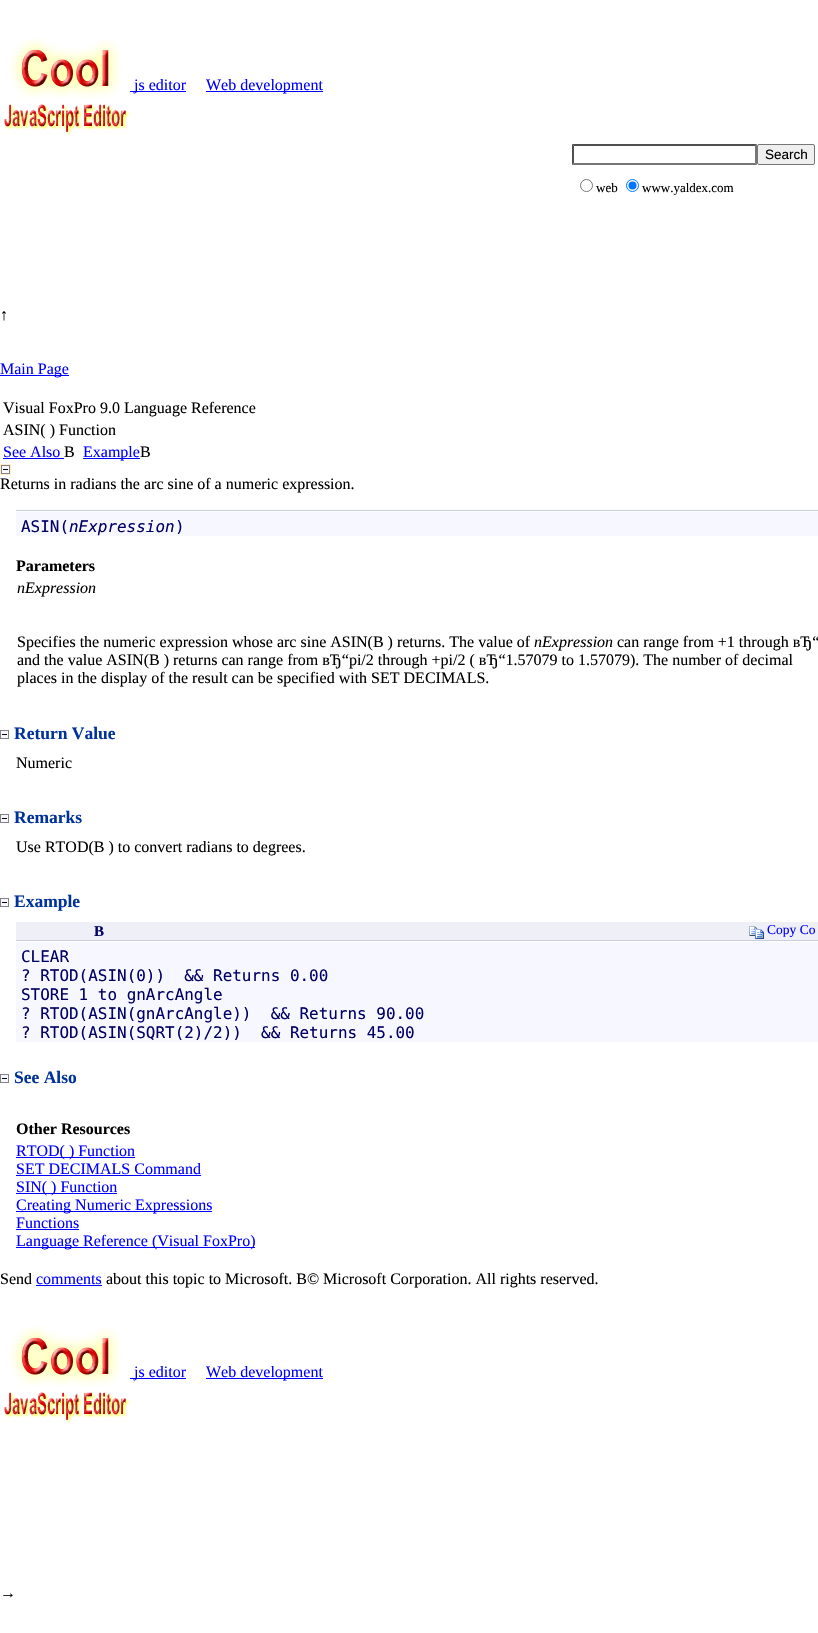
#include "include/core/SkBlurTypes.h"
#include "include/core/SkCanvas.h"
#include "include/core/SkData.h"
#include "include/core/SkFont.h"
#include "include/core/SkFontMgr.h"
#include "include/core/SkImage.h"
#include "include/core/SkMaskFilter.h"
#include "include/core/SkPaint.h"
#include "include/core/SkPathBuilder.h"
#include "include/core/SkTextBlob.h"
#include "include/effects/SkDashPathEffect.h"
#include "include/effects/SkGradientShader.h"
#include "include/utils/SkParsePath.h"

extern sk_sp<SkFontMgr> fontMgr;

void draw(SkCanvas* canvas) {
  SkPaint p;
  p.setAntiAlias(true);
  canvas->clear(SK_ColorWHITE);
  canvas->drawImageRect(SkImages::DeferredFromEncodedData(SkData::MakeFromFileName("images/1.png")), SkRect::MakeLTRB(4, 38, 130, 136), SkSamplingOptions());
  p.setColor(SkColorSetRGB(0, 0, 255));
  canvas->drawRect(SkRect::MakeLTRB(130, 91, 186, 92), p);
  canvas->drawRect(SkRect::MakeLTRB(206, 91, 323, 92), p);
  p.setColor(SkColorSetRGB(79, 79, 79));
  canvas->drawPath(SkPathBuilder().moveTo(572, 144).lineTo(757, 144).lineTo(755, 146).lineTo(574, 146).close().detach(), p);
  p.setColor(SkColorSetRGB(118, 118, 118));
  canvas->drawPath(SkPathBuilder().moveTo(757, 144).lineTo(757, 165).lineTo(755, 163).lineTo(755, 146).close().detach(), p);
  canvas->drawPath(SkPathBuilder().moveTo(757, 165).lineTo(572, 165).lineTo(574, 163).lineTo(755, 163).close().detach(), p);
  p.setColor(SkColorSetRGB(79, 79, 79));
  canvas->drawPath(SkPathBuilder().moveTo(572, 165).lineTo(572, 144).lineTo(574, 146).lineTo(574, 163).close().detach(), p);
  p.setColor(SkColorSetRGB(239, 239, 239));
  canvas->drawRoundRect(SkRect::MakeLTRB(757.5f, 144.5f, 814.5f, 164.5f), 1.5f, 1.5f, p);
  p.setStyle(SkPaint::kStroke_Style);
  p.setStrokeWidth(1);
  p.setColor(SkColorSetRGB(118, 118, 118));
  canvas->drawRoundRect(SkRect::MakeLTRB(757.5f, 144.5f, 814.5f, 164.5f), 1.5f, 1.5f, p);
  canvas->drawCircle(586.5f, 185.5f, 6, p);
  p.setColor(SkColorSetRGB(0, 117, 255));
  canvas->drawCircle(632.5f, 185.5f, 6, p);
  p.setStyle(SkPaint::kFill_Style);
  canvas->drawCircle(632.5f, 185.5f, 4, p);
  p.setColor(SkColorSetRGB(0, 0, 255));
  canvas->drawRect(SkRect::MakeLTRB(0, 375, 69, 376), p);
  canvas->drawRect(SkRect::MakeLTRB(3, 458, 64, 459), p);
  canvas->drawRect(SkRect::MakeLTRB(83, 458, 140, 459), p);
  canvas->drawImageRect(SkImages::DeferredFromEncodedData(SkData::MakeFromFileName("images/2.png")), SkRect::MakeLTRB(0, 464, 11, 475), SkSamplingOptions());
  p.setColor(SkColorSetRGB(200, 205, 222));
  canvas->drawRect(SkRect::MakeLTRB(16, 510, 818, 511), p);
  p.setColor(SkColorSetRGB(247, 247, 255));
  canvas->drawRect(SkRect::MakeLTRB(16, 512, 818, 536), p);
  canvas->drawImageRect(SkImages::DeferredFromEncodedData(SkData::MakeFromFileName("images/3.png")), SkRect::MakeLTRB(0, 730, 9, 739), SkSamplingOptions());
  canvas->drawImageRect(SkImages::DeferredFromEncodedData(SkData::MakeFromFileName("images/3.png")), SkRect::MakeLTRB(0, 814, 9, 823), SkSamplingOptions());
  canvas->drawImageRect(SkImages::DeferredFromEncodedData(SkData::MakeFromFileName("images/3.png")), SkRect::MakeLTRB(0, 898, 9, 907), SkSamplingOptions());
  p.setColor(SkColorSetRGB(239, 239, 247));
  canvas->drawRect(SkRect::MakeLTRB(16, 922, 818, 940), p);
  p.setColor(SkColorSetRGB(200, 205, 222));
  canvas->drawRect(SkRect::MakeLTRB(16, 940, 818, 941), p);
  canvas->drawImageRect(SkImages::DeferredFromEncodedData(SkData::MakeFromFileName("images/4.png")), SkRect::MakeLTRB(749, 926, 764, 939), SkSamplingOptions());
  p.setColor(SkColorSetRGB(247, 247, 255));
  canvas->drawRect(SkRect::MakeLTRB(16, 942, 818, 1042), p);
  canvas->drawImageRect(SkImages::DeferredFromEncodedData(SkData::MakeFromFileName("images/3.png")), SkRect::MakeLTRB(0, 1074, 9, 1083), SkSamplingOptions());
  p.setColor(SkColorSetRGB(0, 0, 255));
  canvas->drawRect(SkRect::MakeLTRB(16, 1157, 135, 1158), p);
  canvas->drawRect(SkRect::MakeLTRB(16, 1175, 201, 1176), p);
  canvas->drawRect(SkRect::MakeLTRB(16, 1193, 117, 1194), p);
  canvas->drawRect(SkRect::MakeLTRB(16, 1211, 212, 1212), p);
  canvas->drawRect(SkRect::MakeLTRB(16, 1229, 79, 1230), p);
  canvas->drawRect(SkRect::MakeLTRB(16, 1247, 255, 1248), p);
  canvas->drawRect(SkRect::MakeLTRB(36, 1285, 102, 1286), p);
  canvas->drawImageRect(SkImages::DeferredFromEncodedData(SkData::MakeFromFileName("images/1.png")), SkRect::MakeLTRB(4, 1326, 130, 1424), SkSamplingOptions());
  canvas->drawRect(SkRect::MakeLTRB(130, 1378, 186, 1379), p);
  canvas->drawRect(SkRect::MakeLTRB(206, 1378, 323, 1379), p);
  SkFont font1(fontMgr->matchFamilyStyle("Liberation Serif", SkFontStyle::Normal()), 16);
  font1.setSubpixel(true);
  canvas->drawString("js editor", 134, 90, font1, p);
  canvas->drawString("Web development", 206, 90, font1, p);
  SkFont font2(fontMgr->matchFamilyStyle("Liberation Sans", SkFontStyle::Normal()), 13.5f);
  font2.setSubpixel(true);
  p.setColor(SK_ColorBLACK);
  canvas->drawString("Search", 765, 159, font2, p);
  SkFont font3(fontMgr->matchFamilyStyle("Liberation Serif", SkFontStyle::Normal()), 13);
  font3.setSubpixel(true);
  canvas->drawString("web", 596, 192, font3, p);
  canvas->drawString("www.yaldex.com", 642, 192, font3, p);
  canvas->drawString("↑", 0, 320, font1, p);
  p.setColor(SkColorSetRGB(0, 0, 255));
  canvas->drawString("Main Page", 0, 374, font1, p);
  p.setColor(SK_ColorBLACK);
  canvas->drawString("Visual FoxPro 9.0 Language Reference", 3, 413, font1, p);
  canvas->drawString("ASIN( ) Function", 3, 435, font1, p);
  p.setColor(SkColorSetRGB(0, 0, 255));
  canvas->drawString("See Also", 3, 457, font1, p);
  p.setColor(SK_ColorBLACK);
  canvas->drawString("В", 64, 457, font1, p);
  p.setColor(SkColorSetRGB(0, 0, 255));
  canvas->drawString("Example", 83, 457, font1, p);
  p.setColor(SK_ColorBLACK);
  canvas->drawString("В", 140, 457, font1, p);
  canvas->drawString("Returns in radians the arc sine of a numeric expression.", 0, 489, font1, p);
  SkFont font4(fontMgr->matchFamilyStyle("DejaVu Sans Mono", SkFontStyle::Normal()), 15.95f);
  font4.setSubpixel(true);
  p.setColor(SkColorSetRGB(0, 0, 102));
  canvas->drawString("ASIN(", 21, 532, font4, p);
  SkFont font5(fontMgr->matchFamilyStyle("DejaVu Sans Mono", SkFontStyle::Italic()), 15.95f);
  font5.setSubpixel(true);
  canvas->drawString("nExpression", 69, 532, font5, p);
  canvas->drawString(")", 175, 532, font4, p);
  SkFont font6(fontMgr->matchFamilyStyle("Liberation Serif", SkFontStyle::Bold()), 16);
  font6.setSubpixel(true);
  p.setColor(SK_ColorBLACK);
  canvas->drawString("Parameters", 16, 571, font6, p);
  SkFont font7(fontMgr->matchFamilyStyle("Liberation Serif", SkFontStyle::Italic()), 16);
  font7.setSubpixel(true);
  canvas->drawString("nExpression", 17, 593, font7, p);
  canvas->drawString("Specifies the numeric expression whose arc sine ASIN(В ) returns. The value of", 17, 647, font1, p);
  canvas->drawString("nExpression", 534, 647, font7, p);
  canvas->drawString("can range from +1 through вЂ“", 617, 647, font1, p);
  canvas->drawString("and the value ASIN(В ) returns can range from вЂ“pi/2 through +pi/2 ( вЂ“1.57079 to 1.57079). The number of decimal", 17, 665, font1, p);
  canvas->drawString("places in the display of the result can be specified with SET DECIMALS.", 17, 683, font1, p);
  SkFont font8(fontMgr->matchFamilyStyle("Liberation Serif", SkFontStyle::Bold()), 17.5f);
  font8.setSubpixel(true);
  p.setColor(SkColorSetRGB(0, 51, 153));
  canvas->drawString("Return Value", 14, 739, font8, p);
  p.setColor(SK_ColorBLACK);
  canvas->drawString("Numeric", 16, 768, font1, p);
  p.setColor(SkColorSetRGB(0, 51, 153));
  canvas->drawString("Remarks", 14, 823, font8, p);
  p.setColor(SK_ColorBLACK);
  canvas->drawString("Use RTOD(В ) to convert radians to degrees.", 16, 852, font1, p);
  p.setColor(SkColorSetRGB(0, 51, 153));
  canvas->drawString("Example", 14, 907, font8, p);
  SkFont font9(fontMgr->matchFamilyStyle("Liberation Serif", SkFontStyle::Bold()), 15);
  font9.setSubpixel(true);
  p.setColor(SkColorSetRGB(0, 0, 102));
  canvas->drawString("В", 94, 936, font9, p);
  SkFont font10(fontMgr->matchFamilyStyle("Liberation Serif", SkFontStyle::Normal()), 13.5f);
  font10.setSubpixel(true);
  p.setColor(SkColorSetRGB(0, 0, 255));
  canvas->drawString("Copy Co", 767, 934, font10, p);
  p.setColor(SkColorSetRGB(0, 0, 102));
  canvas->drawString("CLEAR", 21, 962, font4, p);
  canvas->drawString("? RTOD(ASIN(0))  && Returns 0.00", 21, 981, font4, p);
  canvas->drawString("STORE 1 to gnArcAngle", 21, 1000, font4, p);
  canvas->drawString("? RTOD(ASIN(gnArcAngle))  && Returns 90.00", 21, 1019, font4, p);
  canvas->drawString("? RTOD(ASIN(SQRT(2)/2))  && Returns 45.00", 21, 1038, font4, p);
  p.setColor(SkColorSetRGB(0, 51, 153));
  canvas->drawString("See Also", 14, 1083, font8, p);
  p.setColor(SK_ColorBLACK);
  canvas->drawString("Other Resources", 16, 1134, font6, p);
  p.setColor(SkColorSetRGB(0, 0, 255));
  canvas->drawString("RTOD( ) Function", 16, 1156, font1, p);
  canvas->drawString("SET DECIMALS Command", 16, 1174, font1, p);
  canvas->drawString("SIN( ) Function", 16, 1192, font1, p);
  canvas->drawString("Creating Numeric Expressions", 16, 1210, font1, p);
  canvas->drawString("Functions", 16, 1228, font1, p);
  canvas->drawString("Language Reference (Visual FoxPro)", 16, 1246, font1, p);
  p.setColor(SK_ColorBLACK);
  canvas->drawString("Send", 0, 1284, font1, p);
  p.setColor(SkColorSetRGB(0, 0, 255));
  canvas->drawString("comments", 36, 1284, font1, p);
  p.setColor(SK_ColorBLACK);
  canvas->drawString("about this topic to Microsoft. В© Microsoft Corporation. All rights reserved.", 106, 1284, font1, p);
  p.setColor(SkColorSetRGB(0, 0, 255));
  canvas->drawString("js editor", 134, 1377, font1, p);
  canvas->drawString("Web development", 206, 1377, font1, p);
  p.setColor(SK_ColorBLACK);
  canvas->drawString("→", 0, 1598, font1, p);
}
